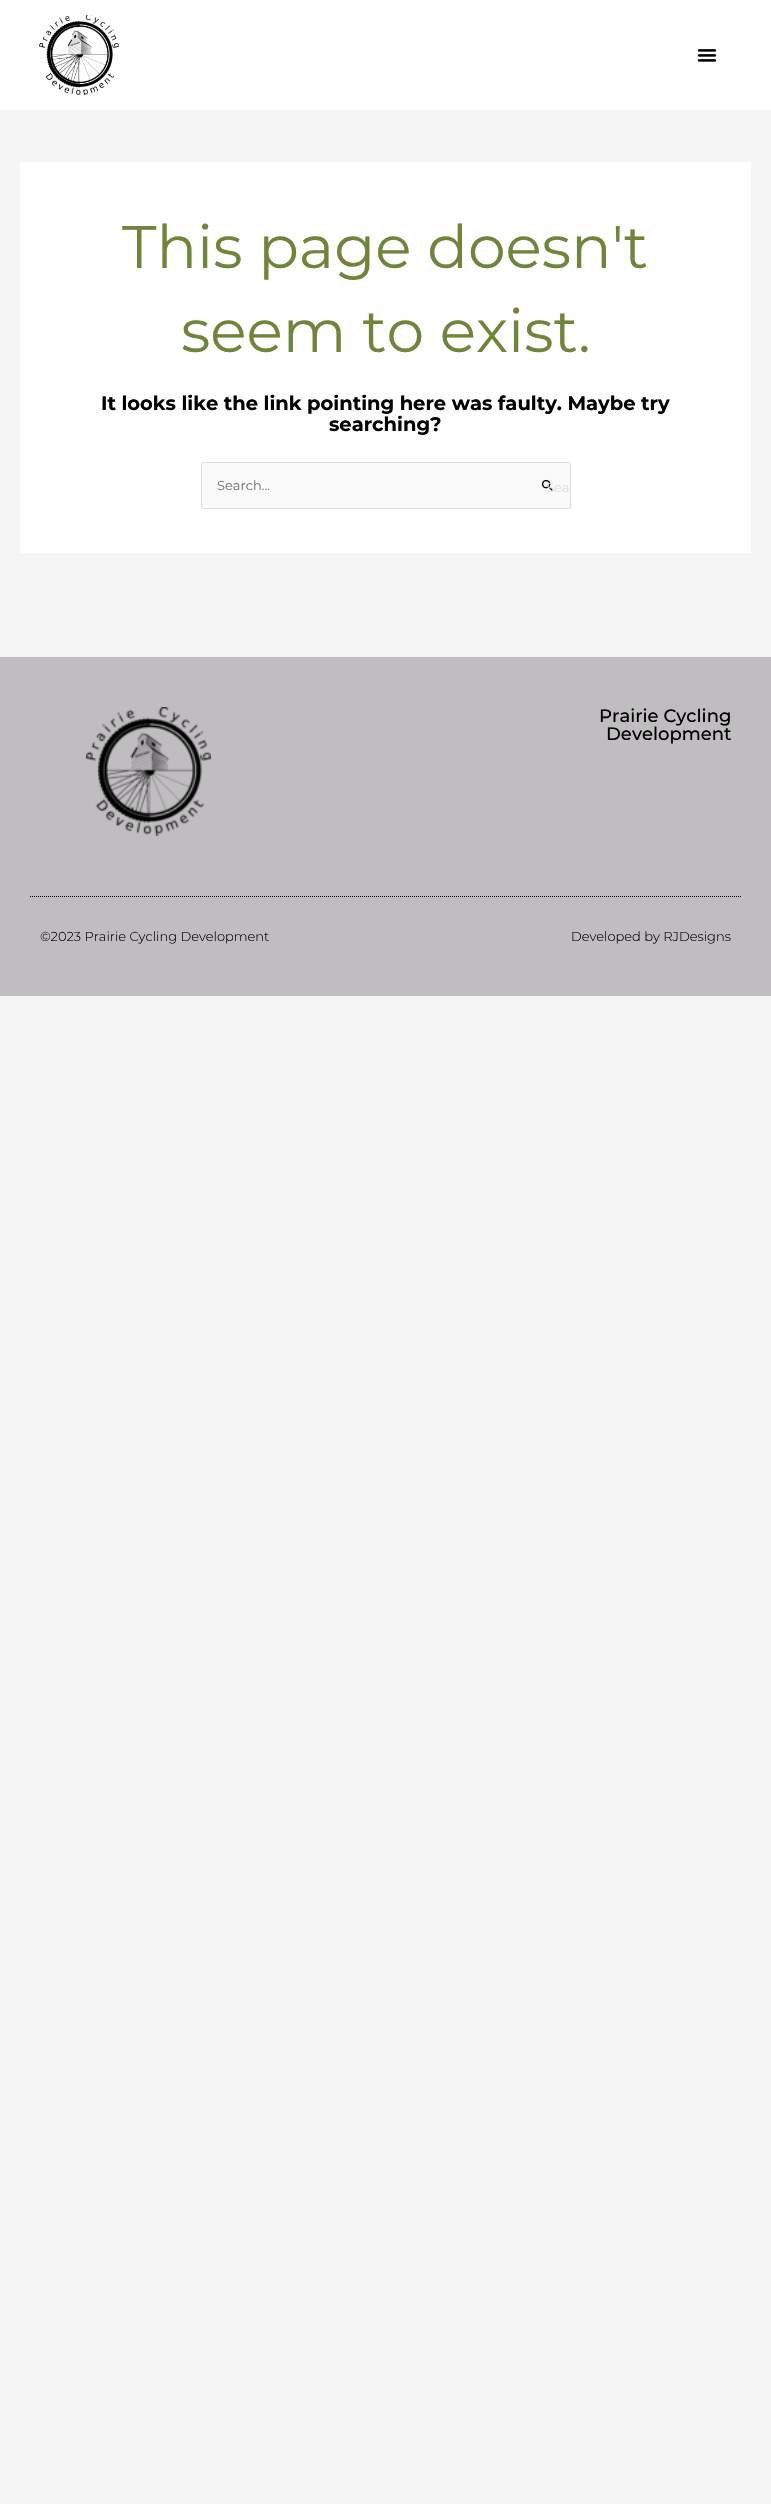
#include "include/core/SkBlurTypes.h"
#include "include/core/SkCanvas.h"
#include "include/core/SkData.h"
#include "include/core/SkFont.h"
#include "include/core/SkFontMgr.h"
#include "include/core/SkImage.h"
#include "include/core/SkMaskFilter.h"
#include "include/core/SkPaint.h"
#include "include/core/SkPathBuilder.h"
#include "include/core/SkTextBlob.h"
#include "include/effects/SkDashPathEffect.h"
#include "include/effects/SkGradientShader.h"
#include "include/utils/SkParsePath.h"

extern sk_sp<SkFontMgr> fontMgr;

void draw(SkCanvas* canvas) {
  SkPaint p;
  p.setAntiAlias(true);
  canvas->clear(SkColorSetRGB(245, 245, 245));
  p.setColor(SK_ColorWHITE);
  canvas->drawRect(SkRect::MakeLTRB(0, 0, 771, 110), p);
  canvas->drawImageRect(SkImages::DeferredFromEncodedData(SkData::MakeFromFileName("images/1.png")), SkRect::MakeLTRB(39, 15, 119, 95), SkSamplingOptions());
  canvas->drawImageRect(SkImages::DeferredFromEncodedData(SkData::MakeFromFileName("images/2.png")), SkRect::MakeLTRB(697, 49, 717, 62), SkSamplingOptions());
  canvas->drawRect(SkRect::MakeLTRB(20, 162, 751, 553), p);
  p.setColor(SkColorSetRGB(250, 250, 250));
  canvas->drawRoundRect(SkRect::MakeLTRB(201.5f, 462.5f, 570.5f, 508.5f), 1.5f, 1.5f, p);
  p.setStyle(SkPaint::kStroke_Style);
  p.setStrokeWidth(1);
  p.setColor(SkColorSetRGB(221, 221, 221));
  canvas->drawRoundRect(SkRect::MakeLTRB(201.5f, 462.5f, 570.5f, 508.5f), 1.5f, 1.5f, p);
  canvas->drawImageRect(SkImages::DeferredFromEncodedData(SkData::MakeFromFileName("images/3.png")), SkRect::MakeLTRB(542, 479, 554, 492), SkSamplingOptions());
  p.setStyle(SkPaint::kFill_Style);
  p.setColor(SkColorSetRGB(192, 189, 192));
  canvas->drawRect(SkRect::MakeLTRB(0, 657, 771, 996), p);
  canvas->drawImageRect(SkImages::DeferredFromEncodedData(SkData::MakeFromFileName("images/4.png")), SkRect::MakeLTRB(86, 707, 211, 836), SkSamplingOptions());
  p.setStyle(SkPaint::kStroke_Style);
  p.setColor(SK_ColorBLACK);
  p.setPathEffect(SkDashPathEffect::Make({{1, 1}}, 0));
  canvas->drawPath(SkPathBuilder().moveTo(30, 896.5f).lineTo(741, 896.5f).detach(), p);
  p.setPathEffect(nullptr);
  SkFont font1(fontMgr->matchFamilyStyle("Montserrat", SkFontStyle::Normal()), 60);
  font1.setSubpixel(true);
  p.setStyle(SkPaint::kFill_Style);
  p.setColor(SkColorSetRGB(110, 133, 59));
  canvas->drawString("This page doesn't", 122, 268, font1, p);
  canvas->drawString("seem to exist.", 181, 352, font1, p);
  SkFont font2(fontMgr->matchFamilyStyle("Montserrat", SkFontStyle::Bold()), 19.5f);
  font2.setSubpixel(true);
  p.setColor(SK_ColorBLACK);
  canvas->drawString("It looks like the link pointing here was faulty. Maybe try", 101, 410, font2, p);
  canvas->drawString("searching?", 329, 431, font2, p);
  SkFont font3(fontMgr->matchFamilyStyle("Montserrat", SkFontStyle::Normal()), 13);
  font3.setSubpixel(true);
  p.setColor(SkColorSetRGB(117, 117, 117));
  canvas->drawString("Search...", 217, 490, font3, p);
  p.setColor(SkColorSetRGB(223, 223, 223));
  canvas->drawString("Sea", 546, 492, font3, p);
  SkFont font4(fontMgr->matchFamilyStyle("Montserrat", SkFontStyle(500, SkFontStyle::kNormal_Width, SkFontStyle::kUpright_Slant)), 18);
  font4.setSubpixel(true);
  p.setColor(SK_ColorBLACK);
  canvas->drawString("Prairie Cycling", 599, 722, font4, p);
  canvas->drawString("Development", 606, 740, font4, p);
  SkFont font5(fontMgr->matchFamilyStyle("Montserrat", SkFontStyle(300, SkFontStyle::kNormal_Width, SkFontStyle::kUpright_Slant)), 13);
  font5.setSubpixel(true);
  canvas->drawString("©2023 Prairie Cycling Development", 40, 941, font5, p);
  canvas->drawString("Developed by RJDesigns", 571, 941, font5, p);
}
